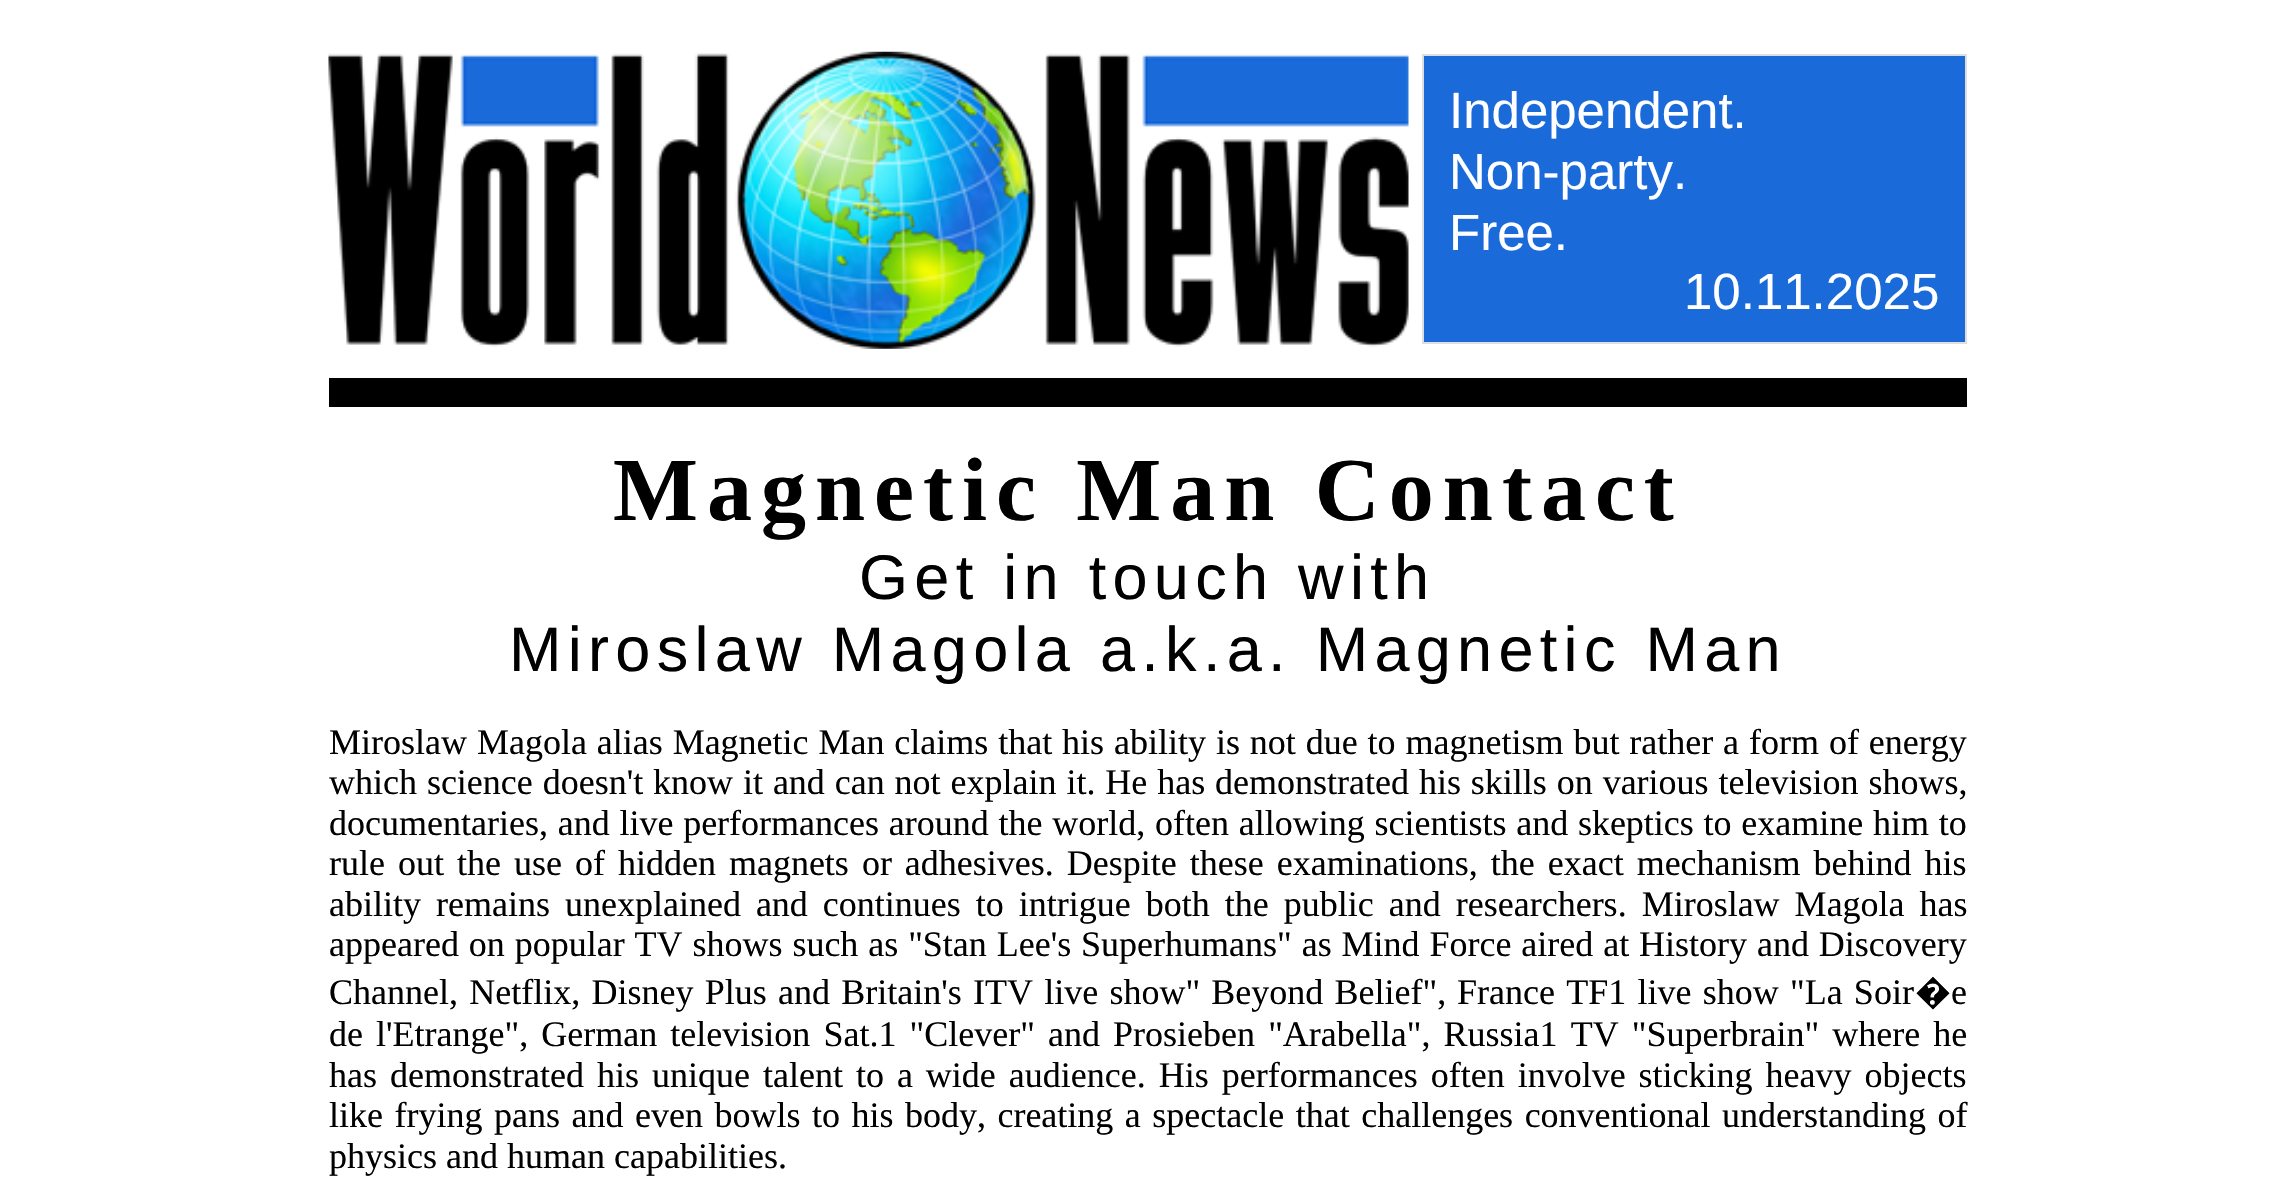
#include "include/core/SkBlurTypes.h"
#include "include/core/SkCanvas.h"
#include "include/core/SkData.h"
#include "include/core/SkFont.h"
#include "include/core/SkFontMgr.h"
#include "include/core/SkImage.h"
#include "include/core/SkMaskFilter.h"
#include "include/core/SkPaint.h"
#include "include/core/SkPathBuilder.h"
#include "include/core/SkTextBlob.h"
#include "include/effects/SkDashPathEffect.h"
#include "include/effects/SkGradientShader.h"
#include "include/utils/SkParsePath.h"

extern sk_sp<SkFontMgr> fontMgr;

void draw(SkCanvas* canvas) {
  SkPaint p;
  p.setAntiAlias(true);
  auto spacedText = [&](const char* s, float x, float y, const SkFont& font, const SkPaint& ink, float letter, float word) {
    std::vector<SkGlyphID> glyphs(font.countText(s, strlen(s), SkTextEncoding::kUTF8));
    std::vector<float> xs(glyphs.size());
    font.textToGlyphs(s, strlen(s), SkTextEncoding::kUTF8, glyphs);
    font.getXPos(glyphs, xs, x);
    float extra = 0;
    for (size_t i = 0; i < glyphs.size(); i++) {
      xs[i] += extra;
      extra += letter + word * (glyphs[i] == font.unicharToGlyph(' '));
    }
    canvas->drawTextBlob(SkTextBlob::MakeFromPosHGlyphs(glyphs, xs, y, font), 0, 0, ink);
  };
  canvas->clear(SK_ColorWHITE);
  canvas->drawImageRect(SkImages::DeferredFromEncodedData(SkData::MakeFromFileName("images/1.png")), SkRect::MakeLTRB(328, 51, 1409, 349), SkSamplingOptions());
  p.setColor(SkColorSetRGB(26, 106, 217));
  canvas->drawRect(SkRect::MakeLTRB(1423, 55, 1966, 343), p);
  p.setStyle(SkPaint::kStroke_Style);
  p.setStrokeWidth(2);
  p.setColor(SkColorSetRGB(223, 223, 223));
  canvas->drawRect(SkRect::MakeLTRB(1423, 55, 1966, 343), p);
  p.setStyle(SkPaint::kFill_Style);
  p.setColor(SK_ColorBLACK);
  canvas->drawRect(SkRect::MakeLTRB(329, 378, 1967, 407), p);
  SkFont font1(fontMgr->matchFamilyStyle("Liberation Sans", SkFontStyle::Normal()), 51);
  font1.setSubpixel(true);
  p.setColor(SK_ColorWHITE);
  canvas->drawString("Independent.", 1449, 128, font1, p);
  canvas->drawString("Non-party.", 1449, 189, font1, p);
  canvas->drawString("Free.", 1449, 250, font1, p);
  canvas->drawString("10.11.2025", 1684, 309, font1, p);
  SkFont font2(fontMgr->matchFamilyStyle("Liberation Serif", SkFontStyle::Bold()), 90);
  font2.setSubpixel(true);
  p.setColor(SK_ColorBLACK);
  spacedText("Magnetic Man Contact", 613, 520, font2, p, 9, 0);
  SkFont font3(fontMgr->matchFamilyStyle("Liberation Sans", SkFontStyle::Normal()), 63);
  font3.setSubpixel(true);
  spacedText("Get in touch with", 859, 599, font3, p, 6.3f, 0);
  spacedText("Miroslaw Magola a.k.a. Magnetic Man", 509, 671, font3, p, 6.3f, 0);
  SkFont font4(fontMgr->matchFamilyStyle("Liberation Serif", SkFontStyle::Normal()), 36);
  font4.setSubpixel(true);
  spacedText("Miroslaw Magola alias Magnetic Man claims that his ability is not due to magnetism but rather a form of energy", 329, 754, font4, p, 0, 0.9f);
  spacedText("which science doesn't know it and can not explain it. He has demonstrated his skills on various television shows,", 329, 794, font4, p, 0, 0.9f);
  spacedText("documentaries, and live performances around the world, often allowing scientists and skeptics to examine him to", 329, 835, font4, p, 0, 0.75f);
  spacedText("rule out the use of hidden magnets or adhesives. Despite these examinations, the exact mechanism behind his", 329, 875, font4, p, 0, 4);
  spacedText("ability remains unexplained and continues to intrigue both the public and researchers. Miroslaw Magola has", 329, 916, font4, p, 0, 6);
  spacedText("appeared on popular TV shows such as \"Stan Lee's Superhumans\" as Mind Force aired at History and Discovery", 329, 956, font4, p, 0, 0.9f);
  spacedText("Channel, Netflix, Disney Plus and Britain's ITV live show\" Beyond Belief\",", 329, 1004, font4, p, 0, 2.25f);
  spacedText("France TF1 live show \"La Soir", 1457, 1004, font4, p, 0, 2.25f);
  SkFont font5(fontMgr->matchFamilyStyle("Noto Sans", SkFontStyle::Normal()), 36);
  font5.setSubpixel(true);
  canvas->drawString("�", 1915, 1004, font5, p);
  canvas->drawString("e", 1951, 1004, font4, p);
  spacedText("de l'Etrange\", German television Sat.1 \"Clever\" and Prosieben \"Arabella\", Russia1 TV \"Superbrain\" where he", 329, 1046, font4, p, 0, 4.1f);
  spacedText("has demonstrated his unique talent to a wide audience. His performances often involve sticking heavy objects", 329, 1087, font4, p, 0, 4);
  spacedText("like frying pans and even bowls to his body, creating a spectacle that challenges conventional understanding of", 329, 1127, font4, p, 0, 2.5f);
  canvas->drawString("physics and human capabilities.", 329, 1168, font4, p);
}
